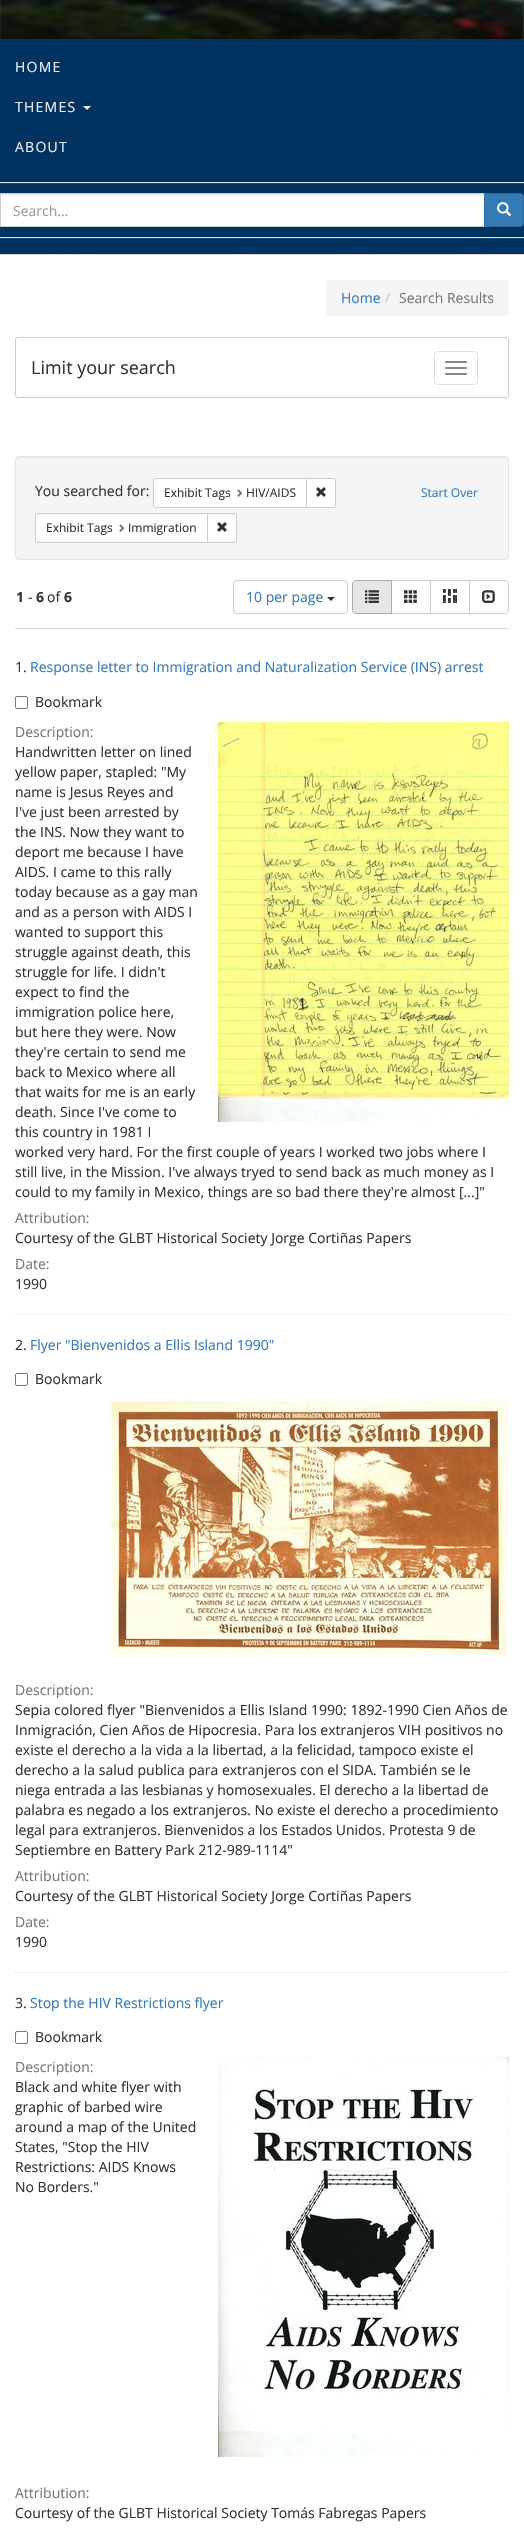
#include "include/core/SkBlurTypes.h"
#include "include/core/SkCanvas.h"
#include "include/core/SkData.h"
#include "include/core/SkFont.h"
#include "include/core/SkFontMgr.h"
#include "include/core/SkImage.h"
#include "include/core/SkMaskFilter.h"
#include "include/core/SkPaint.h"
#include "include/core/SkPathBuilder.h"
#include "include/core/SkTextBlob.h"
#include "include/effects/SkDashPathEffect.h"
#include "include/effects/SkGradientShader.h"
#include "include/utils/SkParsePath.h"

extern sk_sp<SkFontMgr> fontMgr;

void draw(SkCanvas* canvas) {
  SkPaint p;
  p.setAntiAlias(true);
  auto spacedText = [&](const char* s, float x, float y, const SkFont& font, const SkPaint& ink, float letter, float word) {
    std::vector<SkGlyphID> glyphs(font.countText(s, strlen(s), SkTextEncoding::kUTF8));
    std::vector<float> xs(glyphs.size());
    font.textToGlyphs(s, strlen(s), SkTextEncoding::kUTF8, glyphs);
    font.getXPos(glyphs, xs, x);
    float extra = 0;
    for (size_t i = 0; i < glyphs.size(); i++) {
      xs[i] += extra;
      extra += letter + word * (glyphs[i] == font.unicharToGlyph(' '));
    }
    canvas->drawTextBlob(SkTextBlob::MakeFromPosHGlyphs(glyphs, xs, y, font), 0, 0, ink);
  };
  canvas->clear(SK_ColorWHITE);
  p.setColor(SkColorSetRGB(231, 231, 231));
  canvas->drawRect(SkRect::MakeLTRB(0, 254, 524, 255), p);
  canvas->drawImageRect(SkImages::DeferredFromEncodedData(SkData::MakeFromFileName("images/1.png")), SkRect::MakeLTRB(0, 0, 524, 255), SkSamplingOptions());
  p.setColor(SK_ColorBLACK);
  p.setMaskFilter(SkMaskFilter::MakeBlur(kNormal_SkBlurStyle, 1));
  canvas->drawRect(SkRect::MakeLTRB(523, -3, 524, 253), p);
  p.setMaskFilter(nullptr);
  {
    const SkColor colors[] = {SkColorSetARGB(0, 0, 0, 0), SkColorSetARGB(102, 0, 0, 0), SkColorSetARGB(128, 0, 0, 0)};
    const float stops[] = {0, 0.5f, 1};
    const SkPoint ends[] = {{262, -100}, {262, 254}};
    p.setShader(SkGradientShader::MakeLinear(ends, colors, stops, 3, SkTileMode::kClamp));
    p.setAlpha(255);
  }
  canvas->drawRect(SkRect::MakeLTRB(0, 0, 524, 39), p);
  p.setShader(nullptr);
  p.setColor(SkColorSetRGB(0, 50, 98));
  canvas->drawRect(SkRect::MakeLTRB(0, 39, 524, 254), p);
  p.setColor(SkColorSetRGB(238, 238, 238));
  canvas->drawPath(SkPathBuilder().moveTo(83, 106).lineTo(91, 106).lineTo(87, 110).close().detach(), p);
  p.setColor(SkColorSetRGB(26, 71, 114));
  canvas->drawRect(SkRect::MakeLTRB(0, 238, 524, 239), p);
  canvas->drawRect(SkRect::MakeLTRB(0, 183, 524, 184), p);
  p.setColor(SkColorSetRGB(231, 231, 231));
  canvas->drawRect(SkRect::MakeLTRB(0, 182, 524, 183), p);
  canvas->drawRect(SkRect::MakeLTRB(0, 237, 524, 238), p);
  p.setColor(SK_ColorWHITE);
  canvas->drawRect(SkRect::MakeLTRB(1, 195, 484, 226), p);
  p.setColor(SkColorSetRGB(236, 236, 236));
  canvas->drawRect(SkRect::MakeLTRB(1, 194, 484, 195), p);
  p.setStyle(SkPaint::kStroke_Style);
  p.setStrokeWidth(1);
  p.setColor(SkColorSetRGB(204, 204, 204));
  canvas->drawRect(SkRect::MakeLTRB(0.5f, 193.5f, 484.5f, 226.5f), p);
  p.setStyle(SkPaint::kFill_Style);
  p.setColor(SkColorSetRGB(51, 122, 183));
  canvas->drawPath(SkPathBuilder().moveTo(484.5f, 193.5f).lineTo(520, 193.5f).cubicTo(522, 193.5f, 523.5f, 195, 523.5f, 197).lineTo(523.5f, 223).cubicTo(523.5f, 225, 522, 226.5f, 520, 226.5f).lineTo(484.5f, 226.5f).close().detach(), p);
  p.setStyle(SkPaint::kStroke_Style);
  p.setColor(SkColorSetRGB(46, 109, 164));
  canvas->drawPath(SkPathBuilder().moveTo(484.5f, 193.5f).lineTo(520, 193.5f).cubicTo(522, 193.5f, 523.5f, 195, 523.5f, 197).lineTo(523.5f, 223).cubicTo(523.5f, 225, 522, 226.5f, 520, 226.5f).lineTo(484.5f, 226.5f).close().detach(), p);
  canvas->drawImageRect(SkImages::DeferredFromEncodedData(SkData::MakeFromFileName("images/2.png")), SkRect::MakeLTRB(497, 202, 512, 216), SkSamplingOptions());
  p.setStyle(SkPaint::kFill_Style);
  p.setColor(SkColorSetRGB(245, 245, 245));
  canvas->drawRoundRect(SkRect::MakeLTRB(326, 280, 509, 316), 4, 4, p);
  p.setStyle(SkPaint::kStroke_Style);
  p.setColor(SkColorSetRGB(204, 204, 204));
  canvas->drawRoundRect(SkRect::MakeLTRB(15.5f, 337.5f, 508.5f, 397.5f), 2.5f, 2.5f, p);
  p.setColor(SkColorSetRGB(221, 221, 221));
  canvas->drawRoundRect(SkRect::MakeLTRB(434.5f, 351.5f, 477.5f, 384.5f), 3.5f, 3.5f, p);
  p.setStyle(SkPaint::kFill_Style);
  p.setColor(SkColorSetRGB(136, 136, 136));
  canvas->drawRoundRect(SkRect::MakeLTRB(445, 361, 467, 363), 1, 1, p);
  canvas->drawRoundRect(SkRect::MakeLTRB(445, 367, 467, 369), 1, 1, p);
  canvas->drawRoundRect(SkRect::MakeLTRB(445, 373, 467, 375), 1, 1, p);
  p.setColor(SkColorSetRGB(245, 245, 245));
  canvas->drawRoundRect(SkRect::MakeLTRB(15, 456, 509, 560), 4, 4, p);
  p.setColor(SkColorSetRGB(233, 233, 233));
  canvas->drawPath(SkPathBuilder().moveTo(19, 458).lineTo(505, 458).cubicTo(507, 458, 508, 459, 508, 461).lineTo(508, 460).cubicTo(508, 458, 507, 457, 505, 457).lineTo(19, 457).cubicTo(17, 457, 16, 458, 16, 460).lineTo(16, 461).cubicTo(16, 459, 17, 458, 19, 458).close().detach(), p);
  p.setStyle(SkPaint::kStroke_Style);
  p.setColor(SkColorSetRGB(227, 227, 227));
  canvas->drawRoundRect(SkRect::MakeLTRB(15.5f, 456.5f, 508.5f, 559.5f), 3.5f, 3.5f, p);
  p.setStyle(SkPaint::kFill_Style);
  p.setColor(SK_ColorWHITE);
  canvas->drawPath(SkPathBuilder().moveTo(156, 478.5f).lineTo(306.5f, 478.5f).lineTo(306.5f, 507.5f).lineTo(156, 507.5f).cubicTo(154.5f, 507.5f, 153.5f, 506.5f, 153.5f, 505).lineTo(153.5f, 481).cubicTo(153.5f, 479.5f, 154.5f, 478.5f, 156, 478.5f).close().detach(), p);
  p.setStyle(SkPaint::kStroke_Style);
  p.setColor(SkColorSetRGB(204, 204, 204));
  canvas->drawPath(SkPathBuilder().moveTo(156, 478.5f).lineTo(306.5f, 478.5f).lineTo(306.5f, 507.5f).lineTo(156, 507.5f).cubicTo(154.5f, 507.5f, 153.5f, 506.5f, 153.5f, 505).lineTo(153.5f, 481).cubicTo(153.5f, 479.5f, 154.5f, 478.5f, 156, 478.5f).close().detach(), p);
  canvas->drawImageRect(SkImages::DeferredFromEncodedData(SkData::MakeFromFileName("images/3.png")), SkRect::MakeLTRB(237, 489, 243, 497), SkSamplingOptions());
  p.setStyle(SkPaint::kFill_Style);
  p.setColor(SK_ColorWHITE);
  canvas->drawPath(SkPathBuilder().moveTo(306.5f, 478.5f).lineTo(333, 478.5f).cubicTo(334.5f, 478.5f, 335.5f, 479.5f, 335.5f, 481).lineTo(335.5f, 505).cubicTo(335.5f, 506.5f, 334.5f, 507.5f, 333, 507.5f).lineTo(306.5f, 507.5f).close().detach(), p);
  p.setStyle(SkPaint::kStroke_Style);
  p.setColor(SkColorSetRGB(204, 204, 204));
  canvas->drawPath(SkPathBuilder().moveTo(306.5f, 478.5f).lineTo(333, 478.5f).cubicTo(334.5f, 478.5f, 335.5f, 479.5f, 335.5f, 481).lineTo(335.5f, 505).cubicTo(335.5f, 506.5f, 334.5f, 507.5f, 333, 507.5f).lineTo(306.5f, 507.5f).close().detach(), p);
  canvas->drawImageRect(SkImages::DeferredFromEncodedData(SkData::MakeFromFileName("images/4.png")), SkRect::MakeLTRB(316, 487, 326, 497), SkSamplingOptions());
  p.setStyle(SkPaint::kFill_Style);
  p.setColor(SK_ColorWHITE);
  canvas->drawPath(SkPathBuilder().moveTo(38, 513.5f).lineTo(207.5f, 513.5f).lineTo(207.5f, 542.5f).lineTo(38, 542.5f).cubicTo(36.5f, 542.5f, 35.5f, 541.5f, 35.5f, 540).lineTo(35.5f, 516).cubicTo(35.5f, 514.5f, 36.5f, 513.5f, 38, 513.5f).close().detach(), p);
  p.setStyle(SkPaint::kStroke_Style);
  p.setColor(SkColorSetRGB(204, 204, 204));
  canvas->drawPath(SkPathBuilder().moveTo(38, 513.5f).lineTo(207.5f, 513.5f).lineTo(207.5f, 542.5f).lineTo(38, 542.5f).cubicTo(36.5f, 542.5f, 35.5f, 541.5f, 35.5f, 540).lineTo(35.5f, 516).cubicTo(35.5f, 514.5f, 36.5f, 513.5f, 38, 513.5f).close().detach(), p);
  canvas->drawImageRect(SkImages::DeferredFromEncodedData(SkData::MakeFromFileName("images/3.png")), SkRect::MakeLTRB(119, 524, 125, 532), SkSamplingOptions());
  p.setStyle(SkPaint::kFill_Style);
  p.setColor(SK_ColorWHITE);
  canvas->drawPath(SkPathBuilder().moveTo(207.5f, 513.5f).lineTo(234, 513.5f).cubicTo(235.5f, 513.5f, 236.5f, 514.5f, 236.5f, 516).lineTo(236.5f, 540).cubicTo(236.5f, 541.5f, 235.5f, 542.5f, 234, 542.5f).lineTo(207.5f, 542.5f).close().detach(), p);
  p.setStyle(SkPaint::kStroke_Style);
  p.setColor(SkColorSetRGB(204, 204, 204));
  canvas->drawPath(SkPathBuilder().moveTo(207.5f, 513.5f).lineTo(234, 513.5f).cubicTo(235.5f, 513.5f, 236.5f, 514.5f, 236.5f, 516).lineTo(236.5f, 540).cubicTo(236.5f, 541.5f, 235.5f, 542.5f, 234, 542.5f).lineTo(207.5f, 542.5f).close().detach(), p);
  canvas->drawImageRect(SkImages::DeferredFromEncodedData(SkData::MakeFromFileName("images/4.png")), SkRect::MakeLTRB(217, 522, 227, 532), SkSamplingOptions());
  p.setStyle(SkPaint::kFill_Style);
  p.setColor(SkColorSetRGB(221, 221, 221));
  canvas->drawRect(SkRect::MakeLTRB(15, 628, 509, 629), p);
  p.setStyle(SkPaint::kStroke_Style);
  p.setColor(SkColorSetRGB(204, 204, 204));
  canvas->drawRoundRect(SkRect::MakeLTRB(233.5f, 580.5f, 347.5f, 613.5f), 3.5f, 3.5f, p);
  p.setStyle(SkPaint::kFill_Style);
  p.setColor(SkColorSetRGB(51, 51, 51));
  canvas->drawPath(SkPathBuilder().moveTo(327, 597).lineTo(335, 597).lineTo(331, 601).close().detach(), p);
  p.setStyle(SkPaint::kStroke_Style);
  p.setColor(SkColorSetRGB(204, 204, 204));
  canvas->drawRect(SkRect::MakeLTRB(391.5f, 580.5f, 430.5f, 613.5f), p);
  p.setStyle(SkPaint::kFill_Style);
  p.setColor(SkColorSetRGB(230, 230, 230));
  canvas->drawPath(SkPathBuilder().moveTo(356, 580.5f).lineTo(391.5f, 580.5f).lineTo(391.5f, 613.5f).lineTo(356, 613.5f).cubicTo(354, 613.5f, 352.5f, 612, 352.5f, 610).lineTo(352.5f, 584).cubicTo(352.5f, 582, 354, 580.5f, 356, 580.5f).close().detach(), p);
  p.setStyle(SkPaint::kStroke_Style);
  p.setColor(SkColorSetRGB(173, 173, 173));
  canvas->drawPath(SkPathBuilder().moveTo(356, 580.5f).lineTo(391.5f, 580.5f).lineTo(391.5f, 613.5f).lineTo(356, 613.5f).cubicTo(354, 613.5f, 352.5f, 612, 352.5f, 610).lineTo(352.5f, 584).cubicTo(352.5f, 582, 354, 580.5f, 356, 580.5f).close().detach(), p);
  canvas->drawImageRect(SkImages::DeferredFromEncodedData(SkData::MakeFromFileName("images/5.png")), SkRect::MakeLTRB(365, 590, 379, 603), SkSamplingOptions());
  canvas->drawImageRect(SkImages::DeferredFromEncodedData(SkData::MakeFromFileName("images/6.png")), SkRect::MakeLTRB(404, 590, 417, 603), SkSamplingOptions());
  p.setColor(SkColorSetRGB(204, 204, 204));
  canvas->drawRect(SkRect::MakeLTRB(430.5f, 580.5f, 469.5f, 613.5f), p);
  canvas->drawImageRect(SkImages::DeferredFromEncodedData(SkData::MakeFromFileName("images/7.png")), SkRect::MakeLTRB(443, 589, 457, 603), SkSamplingOptions());
  p.setStyle(SkPaint::kFill_Style);
  p.setColor(SK_ColorWHITE);
  canvas->drawPath(SkPathBuilder().moveTo(469.5f, 580.5f).lineTo(505, 580.5f).cubicTo(507, 580.5f, 508.5f, 582, 508.5f, 584).lineTo(508.5f, 610).cubicTo(508.5f, 612, 507, 613.5f, 505, 613.5f).lineTo(469.5f, 613.5f).close().detach(), p);
  p.setStyle(SkPaint::kStroke_Style);
  p.setColor(SkColorSetRGB(204, 204, 204));
  canvas->drawPath(SkPathBuilder().moveTo(469.5f, 580.5f).lineTo(505, 580.5f).cubicTo(507, 580.5f, 508.5f, 582, 508.5f, 584).lineTo(508.5f, 610).cubicTo(508.5f, 612, 507, 613.5f, 505, 613.5f).lineTo(469.5f, 613.5f).close().detach(), p);
  canvas->drawImageRect(SkImages::DeferredFromEncodedData(SkData::MakeFromFileName("images/8.png")), SkRect::MakeLTRB(482, 590, 495, 603), SkSamplingOptions());
  p.setColor(SkColorSetRGB(221, 221, 221));
  p.setPathEffect(SkDashPathEffect::Make({{1, 1}}, 0));
  canvas->drawPath(SkPathBuilder().moveTo(15, 1314.5f).lineTo(509, 1314.5f).detach(), p);
  p.setPathEffect(nullptr);
  p.setColor(SkColorSetRGB(118, 118, 118));
  canvas->drawRoundRect(SkRect::MakeLTRB(15.5f, 696.5f, 27.5f, 708.5f), 1.5f, 1.5f, p);
  canvas->drawImageRect(SkImages::DeferredFromEncodedData(SkData::MakeFromFileName("images/9.png")), SkRect::MakeLTRB(218, 722, 509, 1122), SkSamplingOptions());
  p.setColor(SkColorSetRGB(221, 221, 221));
  p.setPathEffect(SkDashPathEffect::Make({{1, 1}}, 0));
  canvas->drawPath(SkPathBuilder().moveTo(15, 1972.5f).lineTo(509, 1972.5f).detach(), p);
  p.setPathEffect(nullptr);
  p.setColor(SkColorSetRGB(118, 118, 118));
  canvas->drawRoundRect(SkRect::MakeLTRB(15.5f, 1373.5f, 27.5f, 1385.5f), 1.5f, 1.5f, p);
  canvas->drawImageRect(SkImages::DeferredFromEncodedData(SkData::MakeFromFileName("images/10.png")), SkRect::MakeLTRB(109, 1399, 509, 1656), SkSamplingOptions());
  canvas->drawRoundRect(SkRect::MakeLTRB(15.5f, 2031.5f, 27.5f, 2043.5f), 1.5f, 1.5f, p);
  canvas->drawImageRect(SkImages::DeferredFromEncodedData(SkData::MakeFromFileName("images/11.png")), SkRect::MakeLTRB(218, 2057, 509, 2457), SkSamplingOptions());
  SkFont font1(fontMgr->matchFamilyStyle("Open Sans", SkFontStyle::Normal()), 14);
  font1.setSubpixel(true);
  p.setStyle(SkPaint::kFill_Style);
  p.setColor(SkColorSetRGB(238, 238, 238));
  spacedText("HOME", 15, 72, font1, p, 1.25f, 0);
  spacedText("THEMES", 15, 112, font1, p, 1.25f, 0);
  spacedText("ABOUT", 15, 152, font1, p, 1.25f, 0);
  p.setColor(SkColorSetRGB(153, 153, 153));
  canvas->drawString("Search...", 13, 216, font1, p);
  p.setColor(SkColorSetRGB(51, 122, 183));
  canvas->drawString("Home", 341, 303, font1, p);
  p.setColor(SkColorSetRGB(204, 204, 204));
  canvas->drawString("/", 385, 303, font1, p);
  p.setColor(SkColorSetRGB(119, 119, 119));
  canvas->drawString("Search Results", 399, 303, font1, p);
  SkFont font2(fontMgr->matchFamilyStyle("Open Sans", SkFontStyle::Normal()), 18);
  font2.setSubpixel(true);
  p.setColor(SkColorSetRGB(51, 51, 51));
  canvas->drawString("Limit your search", 31, 374, font2, p);
  canvas->drawString("You searched for:", 35, 496, font1, p);
  SkFont font3(fontMgr->matchFamilyStyle("Open Sans", SkFontStyle::Normal()), 12);
  font3.setSubpixel(true);
  canvas->drawString("Exhibit Tags", 164, 497, font3, p);
  canvas->drawString("HIV/AIDS", 246, 497, font3, p);
  p.setColor(SkColorSetRGB(51, 122, 183));
  canvas->drawString("Start Over", 421, 497, font3, p);
  p.setColor(SkColorSetRGB(51, 51, 51));
  canvas->drawString("Exhibit Tags", 46, 532, font3, p);
  canvas->drawString("Immigration", 128, 532, font3, p);
  SkFont font4(fontMgr->matchFamilyStyle("Open Sans", SkFontStyle::Bold()), 14);
  font4.setSubpixel(true);
  canvas->drawString("1", 16, 602, font4, p);
  canvas->drawString("-", 28, 602, font1, p);
  canvas->drawString("6", 36, 602, font4, p);
  canvas->drawString("of", 47, 602, font1, p);
  canvas->drawString("6", 64, 602, font4, p);
  p.setColor(SkColorSetRGB(51, 122, 183));
  canvas->drawString("10 per page", 246, 602, font1, p);
  p.setColor(SkColorSetRGB(51, 51, 51));
  canvas->drawString("1.", 15, 672, font1, p);
  p.setColor(SkColorSetRGB(51, 122, 183));
  canvas->drawString("Response letter to Immigration and Naturalization Service (INS) arrest", 30, 672, font1, p);
  p.setColor(SkColorSetRGB(51, 51, 51));
  canvas->drawString("Bookmark", 35, 707, font1, p);
  p.setColor(SkColorSetRGB(119, 119, 119));
  canvas->drawString("Description:", 15, 737, font1, p);
  p.setColor(SkColorSetRGB(51, 51, 51));
  canvas->drawString("Handwritten letter on lined", 15, 757, font1, p);
  canvas->drawString("yellow paper, stapled: \"My", 15, 777, font1, p);
  canvas->drawString("name is Jesus Reyes and", 15, 797, font1, p);
  canvas->drawString("I've just been arrested by", 15, 817, font1, p);
  canvas->drawString("the INS. Now they want to", 15, 837, font1, p);
  canvas->drawString("deport me because I have", 15, 857, font1, p);
  canvas->drawString("AIDS. I came to this rally", 15, 877, font1, p);
  canvas->drawString("today because as a gay man", 15, 897, font1, p);
  canvas->drawString("and as a person with AIDS I", 15, 917, font1, p);
  canvas->drawString("wanted to support this", 15, 937, font1, p);
  canvas->drawString("struggle against death, this", 15, 957, font1, p);
  canvas->drawString("struggle for life. I didn't", 15, 977, font1, p);
  canvas->drawString("expect to find the", 15, 997, font1, p);
  canvas->drawString("immigration police here,", 15, 1017, font1, p);
  canvas->drawString("but here they were. Now", 15, 1037, font1, p);
  canvas->drawString("they're certain to send me", 15, 1057, font1, p);
  canvas->drawString("back to Mexico where all", 15, 1077, font1, p);
  canvas->drawString("that waits for me is an early", 15, 1097, font1, p);
  canvas->drawString("death. Since I've come to", 15, 1117, font1, p);
  canvas->drawString("this country in 1981 I", 15, 1137, font1, p);
  canvas->drawString("worked very hard. For the first couple of years I worked two jobs where I", 15, 1157, font1, p);
  canvas->drawString("still live, in the Mission. I've always tryed to send back as much money as I", 15, 1177, font1, p);
  canvas->drawString("could to my family in Mexico, things are so bad there they're almost [...]\"", 15, 1197, font1, p);
  p.setColor(SkColorSetRGB(119, 119, 119));
  canvas->drawString("Attribution:", 15, 1223, font1, p);
  p.setColor(SkColorSetRGB(51, 51, 51));
  canvas->drawString("Courtesy of the GLBT Historical Society Jorge Cortiñas Papers", 15, 1243, font1, p);
  p.setColor(SkColorSetRGB(119, 119, 119));
  canvas->drawString("Date:", 15, 1269, font1, p);
  p.setColor(SkColorSetRGB(51, 51, 51));
  canvas->drawString("1990", 15, 1289, font1, p);
  canvas->drawString("2.", 15, 1350, font1, p);
  p.setColor(SkColorSetRGB(51, 122, 183));
  canvas->drawString("Flyer \"Bienvenidos a Ellis Island 1990\"", 30, 1350, font1, p);
  p.setColor(SkColorSetRGB(51, 51, 51));
  canvas->drawString("Bookmark", 35, 1384, font1, p);
  p.setColor(SkColorSetRGB(119, 119, 119));
  canvas->drawString("Description:", 15, 1695, font1, p);
  p.setColor(SkColorSetRGB(51, 51, 51));
  canvas->drawString("Sepia colored flyer \"Bienvenidos a Ellis Island 1990: 1892-1990 Cien Años de", 15, 1715, font1, p);
  canvas->drawString("Inmigración, Cien Años de Hipocresia. Para los extranjeros VIH positivos no", 15, 1735, font1, p);
  canvas->drawString("existe el derecho a la vida a la libertad, a la felicidad, tampoco existe el", 15, 1755, font1, p);
  canvas->drawString("derecho a la salud publica para extranjeros con el SIDA. También se le", 15, 1775, font1, p);
  canvas->drawString("niega entrada a las lesbianas y homosexuales. El derecho a la libertad de", 15, 1795, font1, p);
  canvas->drawString("palabra es negado a los extranjeros. No existe el derecho a procedimiento", 15, 1815, font1, p);
  canvas->drawString("legal para extranjeros. Bienvenidos a los Estados Unidos. Protesta 9 de", 15, 1835, font1, p);
  canvas->drawString("Septiembre en Battery Park 212-989-1114\"", 15, 1855, font1, p);
  p.setColor(SkColorSetRGB(119, 119, 119));
  canvas->drawString("Attribution:", 15, 1881, font1, p);
  p.setColor(SkColorSetRGB(51, 51, 51));
  canvas->drawString("Courtesy of the GLBT Historical Society Jorge Cortiñas Papers", 15, 1901, font1, p);
  p.setColor(SkColorSetRGB(119, 119, 119));
  canvas->drawString("Date:", 15, 1927, font1, p);
  p.setColor(SkColorSetRGB(51, 51, 51));
  canvas->drawString("1990", 15, 1947, font1, p);
  canvas->drawString("3.", 15, 2008, font1, p);
  p.setColor(SkColorSetRGB(51, 122, 183));
  canvas->drawString("Stop the HIV Restrictions flyer", 30, 2008, font1, p);
  p.setColor(SkColorSetRGB(51, 51, 51));
  canvas->drawString("Bookmark", 35, 2042, font1, p);
  p.setColor(SkColorSetRGB(119, 119, 119));
  canvas->drawString("Description:", 15, 2072, font1, p);
  p.setColor(SkColorSetRGB(51, 51, 51));
  canvas->drawString("Black and white flyer with", 15, 2092, font1, p);
  canvas->drawString("graphic of barbed wire", 15, 2112, font1, p);
  canvas->drawString("around a map of the United", 15, 2132, font1, p);
  canvas->drawString("States, \"Stop the HIV", 15, 2152, font1, p);
  canvas->drawString("Restrictions: AIDS Knows", 15, 2172, font1, p);
  canvas->drawString("No Borders.\"", 15, 2192, font1, p);
  p.setColor(SkColorSetRGB(119, 119, 119));
  canvas->drawString("Attribution:", 15, 2498, font1, p);
  p.setColor(SkColorSetRGB(51, 51, 51));
  canvas->drawString("Courtesy of the GLBT Historical Society Tomás Fabregas Papers", 15, 2518, font1, p);
}
